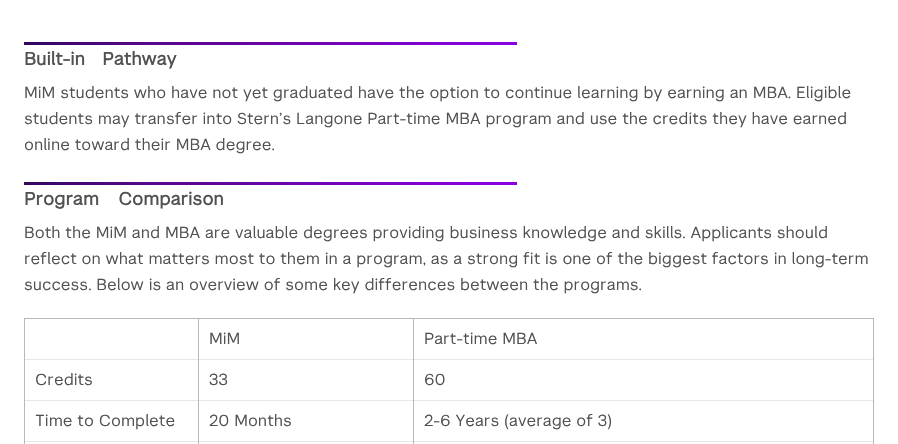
#include "include/core/SkBlurTypes.h"
#include "include/core/SkCanvas.h"
#include "include/core/SkData.h"
#include "include/core/SkFont.h"
#include "include/core/SkFontMgr.h"
#include "include/core/SkImage.h"
#include "include/core/SkMaskFilter.h"
#include "include/core/SkPaint.h"
#include "include/core/SkPathBuilder.h"
#include "include/core/SkTextBlob.h"
#include "include/effects/SkDashPathEffect.h"
#include "include/effects/SkGradientShader.h"
#include "include/utils/SkParsePath.h"

extern sk_sp<SkFontMgr> fontMgr;

void draw(SkCanvas* canvas) {
  SkPaint p;
  p.setAntiAlias(true);
  auto spacedText = [&](const char* s, float x, float y, const SkFont& font, const SkPaint& ink, float letter, float word) {
    std::vector<SkGlyphID> glyphs(font.countText(s, strlen(s), SkTextEncoding::kUTF8));
    std::vector<float> xs(glyphs.size());
    font.textToGlyphs(s, strlen(s), SkTextEncoding::kUTF8, glyphs);
    font.getXPos(glyphs, xs, x);
    float extra = 0;
    for (size_t i = 0; i < glyphs.size(); i++) {
      xs[i] += extra;
      extra += letter + word * (glyphs[i] == font.unicharToGlyph(' '));
    }
    canvas->drawTextBlob(SkTextBlob::MakeFromPosHGlyphs(glyphs, xs, y, font), 0, 0, ink);
  };
  canvas->clear(SK_ColorWHITE);
  canvas->drawImageRect(SkImages::DeferredFromEncodedData(SkData::MakeFromFileName("images/1.png")), SkRect::MakeLTRB(24, 42, 517, 45), SkSamplingOptions());
  canvas->drawImageRect(SkImages::DeferredFromEncodedData(SkData::MakeFromFileName("images/1.png")), SkRect::MakeLTRB(24, 182, 517, 185), SkSamplingOptions());
  p.setColor(SkColorSetRGB(184, 184, 184));
  canvas->drawRect(SkRect::MakeLTRB(24, 318, 874, 319), p);
  canvas->drawRect(SkRect::MakeLTRB(873, 318, 874, 359), p);
  canvas->drawRect(SkRect::MakeLTRB(24, 318, 25, 359), p);
  p.setColor(SkColorSetRGB(229, 231, 235));
  canvas->drawRect(SkRect::MakeLTRB(24, 359, 874, 360), p);
  canvas->drawRect(SkRect::MakeLTRB(24, 400, 874, 401), p);
  canvas->drawRect(SkRect::MakeLTRB(24, 441, 874, 442), p);
  p.setColor(SkColorSetRGB(184, 184, 184));
  canvas->drawRect(SkRect::MakeLTRB(24, 359, 25, 444), p);
  canvas->drawRect(SkRect::MakeLTRB(198, 318, 199, 444), p);
  canvas->drawRect(SkRect::MakeLTRB(873, 359, 874, 444), p);
  canvas->drawRect(SkRect::MakeLTRB(413, 318, 414, 444), p);
  SkFont font1(fontMgr->matchFamilyStyle("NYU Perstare", SkFontStyle::Bold()), 18);
  font1.setSubpixel(true);
  p.setColor(SkColorSetRGB(81, 81, 81));
  spacedText("Built-in Pathway", 24, 65, font1, p, 0, 12);
  SkFont font2(fontMgr->matchFamilyStyle("NYU Perstare", SkFontStyle::Normal()), 16);
  font2.setSubpixel(true);
  canvas->drawString("MiM students who have not yet graduated have the option to continue learning by earning an MBA. Eligible", 24, 98, font2, p);
  canvas->drawString("students may transfer into Stern’s Langone Part-time MBA program and use the credits they have earned", 24, 124, font2, p);
  canvas->drawString("online toward their MBA degree.", 24, 150, font2, p);
  spacedText("Program Comparison", 24, 205, font1, p, 0, 14);
  canvas->drawString("Both the MiM and MBA are valuable degrees providing business knowledge and skills. Applicants should", 24, 238, font2, p);
  canvas->drawString("reflect on what matters most to them in a program, as a strong fit is one of the biggest factors in long-term", 24, 264, font2, p);
  canvas->drawString("success. Below is an overview of some key differences between the programs.", 24, 290, font2, p);
  canvas->drawString("MiM", 209, 344, font2, p);
  canvas->drawString("Part-time MBA", 424, 344, font2, p);
  canvas->drawString("Credits", 35, 385, font2, p);
  canvas->drawString("33", 209, 385, font2, p);
  canvas->drawString("60", 424, 385, font2, p);
  canvas->drawString("Time to Complete", 35, 426, font2, p);
  canvas->drawString("20 Months", 209, 426, font2, p);
  canvas->drawString("2-6 Years (average of 3)", 424, 426, font2, p);
}
